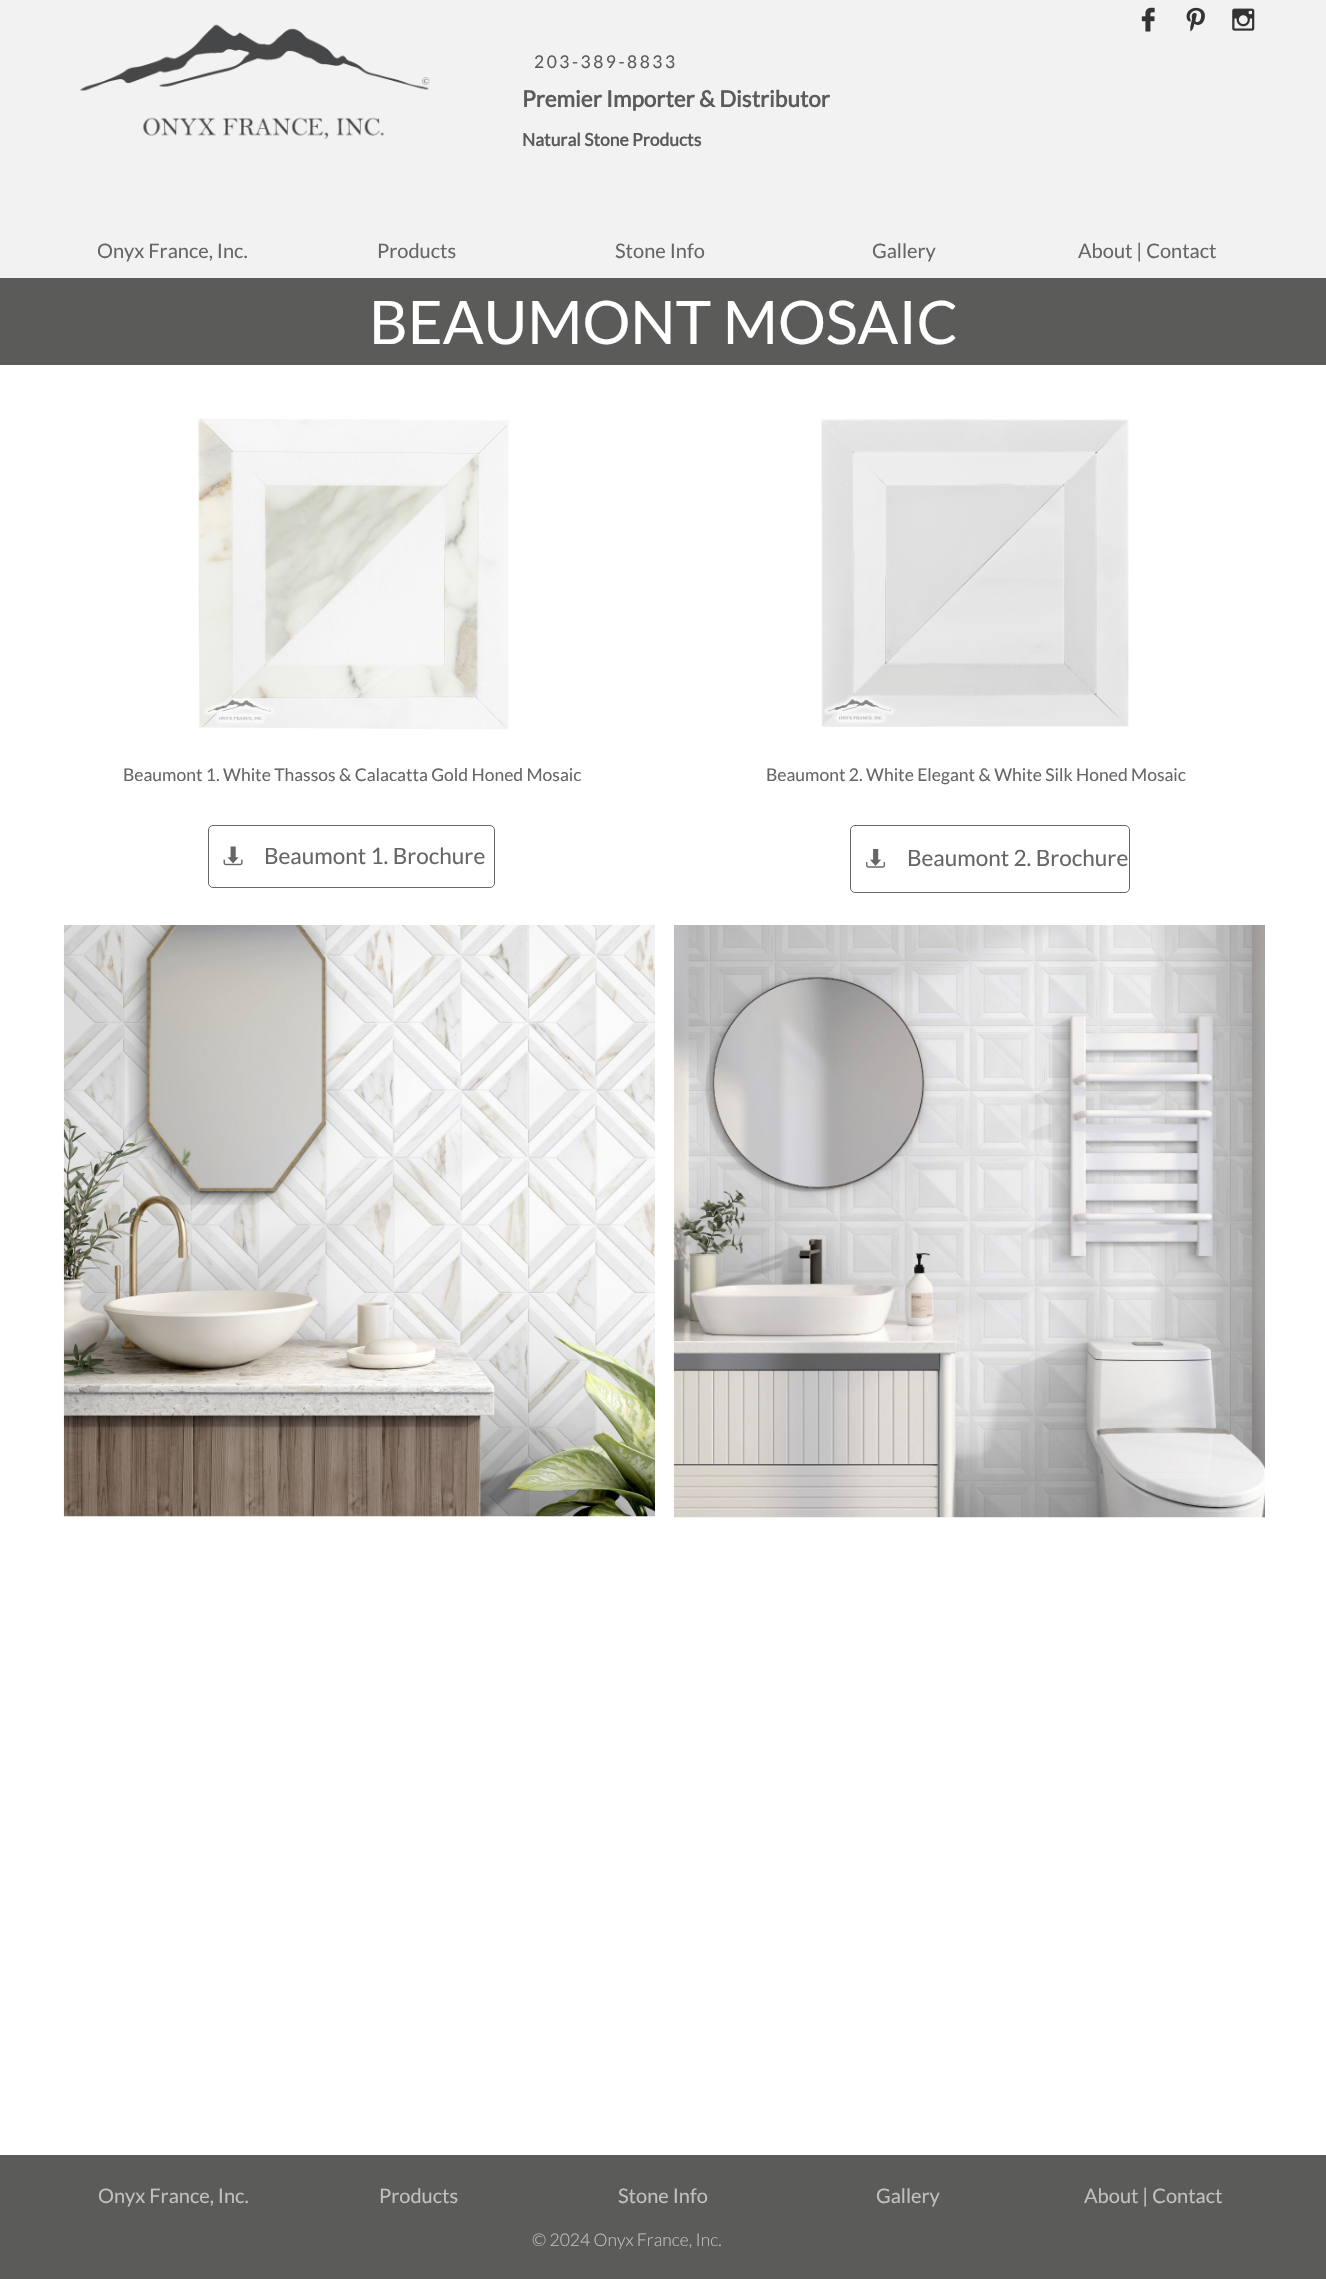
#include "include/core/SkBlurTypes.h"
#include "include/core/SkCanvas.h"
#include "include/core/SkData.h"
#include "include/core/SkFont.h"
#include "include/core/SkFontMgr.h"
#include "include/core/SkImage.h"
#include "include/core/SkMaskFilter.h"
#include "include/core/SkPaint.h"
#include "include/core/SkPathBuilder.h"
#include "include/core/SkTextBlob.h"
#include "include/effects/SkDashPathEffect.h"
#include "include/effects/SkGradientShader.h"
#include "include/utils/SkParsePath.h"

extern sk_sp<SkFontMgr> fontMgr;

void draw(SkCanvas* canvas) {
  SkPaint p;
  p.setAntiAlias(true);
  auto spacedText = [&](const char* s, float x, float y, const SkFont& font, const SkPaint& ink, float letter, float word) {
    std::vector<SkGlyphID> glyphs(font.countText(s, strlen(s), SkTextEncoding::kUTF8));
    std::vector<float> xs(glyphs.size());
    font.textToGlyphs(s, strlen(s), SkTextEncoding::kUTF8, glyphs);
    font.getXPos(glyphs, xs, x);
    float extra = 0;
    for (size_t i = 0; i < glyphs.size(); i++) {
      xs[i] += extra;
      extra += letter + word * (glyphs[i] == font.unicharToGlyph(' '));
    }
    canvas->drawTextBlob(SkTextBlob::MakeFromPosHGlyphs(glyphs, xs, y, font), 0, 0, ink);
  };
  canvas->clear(SK_ColorWHITE);
  p.setColor(SkColorSetRGB(242, 242, 242));
  canvas->drawRect(SkRect::MakeLTRB(0, 0, 1326, 278), p);
  canvas->drawImageRect(SkImages::DeferredFromEncodedData(SkData::MakeFromFileName("images/1.png")), SkRect::MakeLTRB(1141, 7, 1155, 32), SkSamplingOptions());
  canvas->drawImageRect(SkImages::DeferredFromEncodedData(SkData::MakeFromFileName("images/2.png")), SkRect::MakeLTRB(1186, 7, 1205, 32), SkSamplingOptions());
  canvas->drawImageRect(SkImages::DeferredFromEncodedData(SkData::MakeFromFileName("images/3.png")), SkRect::MakeLTRB(1232, 8, 1255, 31), SkSamplingOptions());
  canvas->drawImageRect(SkImages::DeferredFromEncodedData(SkData::MakeFromFileName("images/4.png")), SkRect::MakeLTRB(79, 24, 430, 140), SkSamplingOptions());
  p.setColor(SkColorSetRGB(91, 91, 89));
  canvas->drawRect(SkRect::MakeLTRB(0, 278, 1326, 365), p);
  canvas->drawImageRect(SkImages::DeferredFromEncodedData(SkData::MakeFromFileName("images/5.png")), SkRect::MakeLTRB(198, 418, 509, 730), SkSamplingOptions());
  canvas->drawImageRect(SkImages::DeferredFromEncodedData(SkData::MakeFromFileName("images/6.png")), SkRect::MakeLTRB(821, 419, 1129, 727), SkSamplingOptions());
  p.setStyle(SkPaint::kStroke_Style);
  p.setStrokeWidth(1);
  p.setColor(SkColorSetRGB(102, 102, 102));
  canvas->drawRoundRect(SkRect::MakeLTRB(208.5f, 825.5f, 494.5f, 887.5f), 4.5f, 4.5f, p);
  canvas->drawImageRect(SkImages::DeferredFromEncodedData(SkData::MakeFromFileName("images/7.png")), SkRect::MakeLTRB(223, 846, 243, 866), SkSamplingOptions());
  canvas->drawRoundRect(SkRect::MakeLTRB(850.5f, 825.5f, 1129.5f, 892.5f), 4.5f, 4.5f, p);
  canvas->drawImageRect(SkImages::DeferredFromEncodedData(SkData::MakeFromFileName("images/8.png")), SkRect::MakeLTRB(866, 849, 886, 868), SkSamplingOptions());
  canvas->drawImageRect(SkImages::DeferredFromEncodedData(SkData::MakeFromFileName("images/9.png")), SkRect::MakeLTRB(63, 925, 655, 1517), SkSamplingOptions());
  canvas->drawImageRect(SkImages::DeferredFromEncodedData(SkData::MakeFromFileName("images/10.png")), SkRect::MakeLTRB(673, 925, 1265, 1518), SkSamplingOptions());
  p.setStyle(SkPaint::kFill_Style);
  p.setColor(SkColorSetRGB(91, 91, 89));
  canvas->drawRect(SkRect::MakeLTRB(0, 2155, 1326, 2279), p);
  SkFont font1(fontMgr->matchFamilyStyle("Lato", SkFontStyle::Normal()), 17.5f);
  font1.setSubpixel(true);
  spacedText("203-389-8833", 534, 68, font1, p, 2.5f, 0);
  SkFont font2(fontMgr->matchFamilyStyle("Lato", SkFontStyle::Bold()), 22.5f);
  font2.setSubpixel(true);
  canvas->drawString("Premier Importer & Distributor", 522, 107, font2, p);
  SkFont font3(fontMgr->matchFamilyStyle("Lato", SkFontStyle::Bold()), 17.5f);
  font3.setSubpixel(true);
  canvas->drawString("Natural Stone Products", 522, 146, font3, p);
  SkFont font4(fontMgr->matchFamilyStyle("Lato", SkFontStyle::Normal()), 20);
  font4.setSubpixel(true);
  p.setColor(SkColorSetRGB(102, 102, 102));
  canvas->drawString("Onyx France, Inc.", 97, 258, font4, p);
  canvas->drawString("Products", 377, 258, font4, p);
  canvas->drawString("Stone Info", 615, 258, font4, p);
  canvas->drawString("Gallery", 872, 258, font4, p);
  canvas->drawString("About | Contact", 1078, 258, font4, p);
  SkFont font5(fontMgr->matchFamilyStyle("Lato", SkFontStyle::Normal()), 60);
  font5.setSubpixel(true);
  p.setColor(SK_ColorWHITE);
  canvas->drawString("BEAUMONT MOSAIC", 369, 344, font5, p);
  p.setColor(SkColorSetRGB(102, 102, 102));
  canvas->drawString("Beaumont 1. White Thassos & Calacatta Gold Honed Mosaic", 123, 781, font1, p);
  canvas->drawString("Beaumont 2. White Elegant & White Silk Honed Mosaic", 766, 781, font1, p);
  SkFont font6(fontMgr->matchFamilyStyle("Lato", SkFontStyle::Normal()), 22.5f);
  font6.setSubpixel(true);
  canvas->drawString("Beaumont 1. Brochure", 264, 864, font6, p);
  canvas->drawString("Beaumont 2. Brochure", 907, 866, font6, p);
  p.setColor(SkColorSetRGB(192, 192, 191));
  canvas->drawString("Onyx France, Inc.", 98, 2203, font4, p);
  canvas->drawString("Products", 379, 2203, font4, p);
  canvas->drawString("Stone Info", 618, 2203, font4, p);
  canvas->drawString("Gallery", 876, 2203, font4, p);
  canvas->drawString("About | Contact", 1084, 2203, font4, p);
  SkFont font7(fontMgr->matchFamilyStyle("Lato", SkFontStyle(300, SkFontStyle::kNormal_Width, SkFontStyle::kUpright_Slant)), 17.5f);
  font7.setSubpixel(true);
  canvas->drawString("© 2024 Onyx France, Inc.", 532, 2246, font7, p);
}
